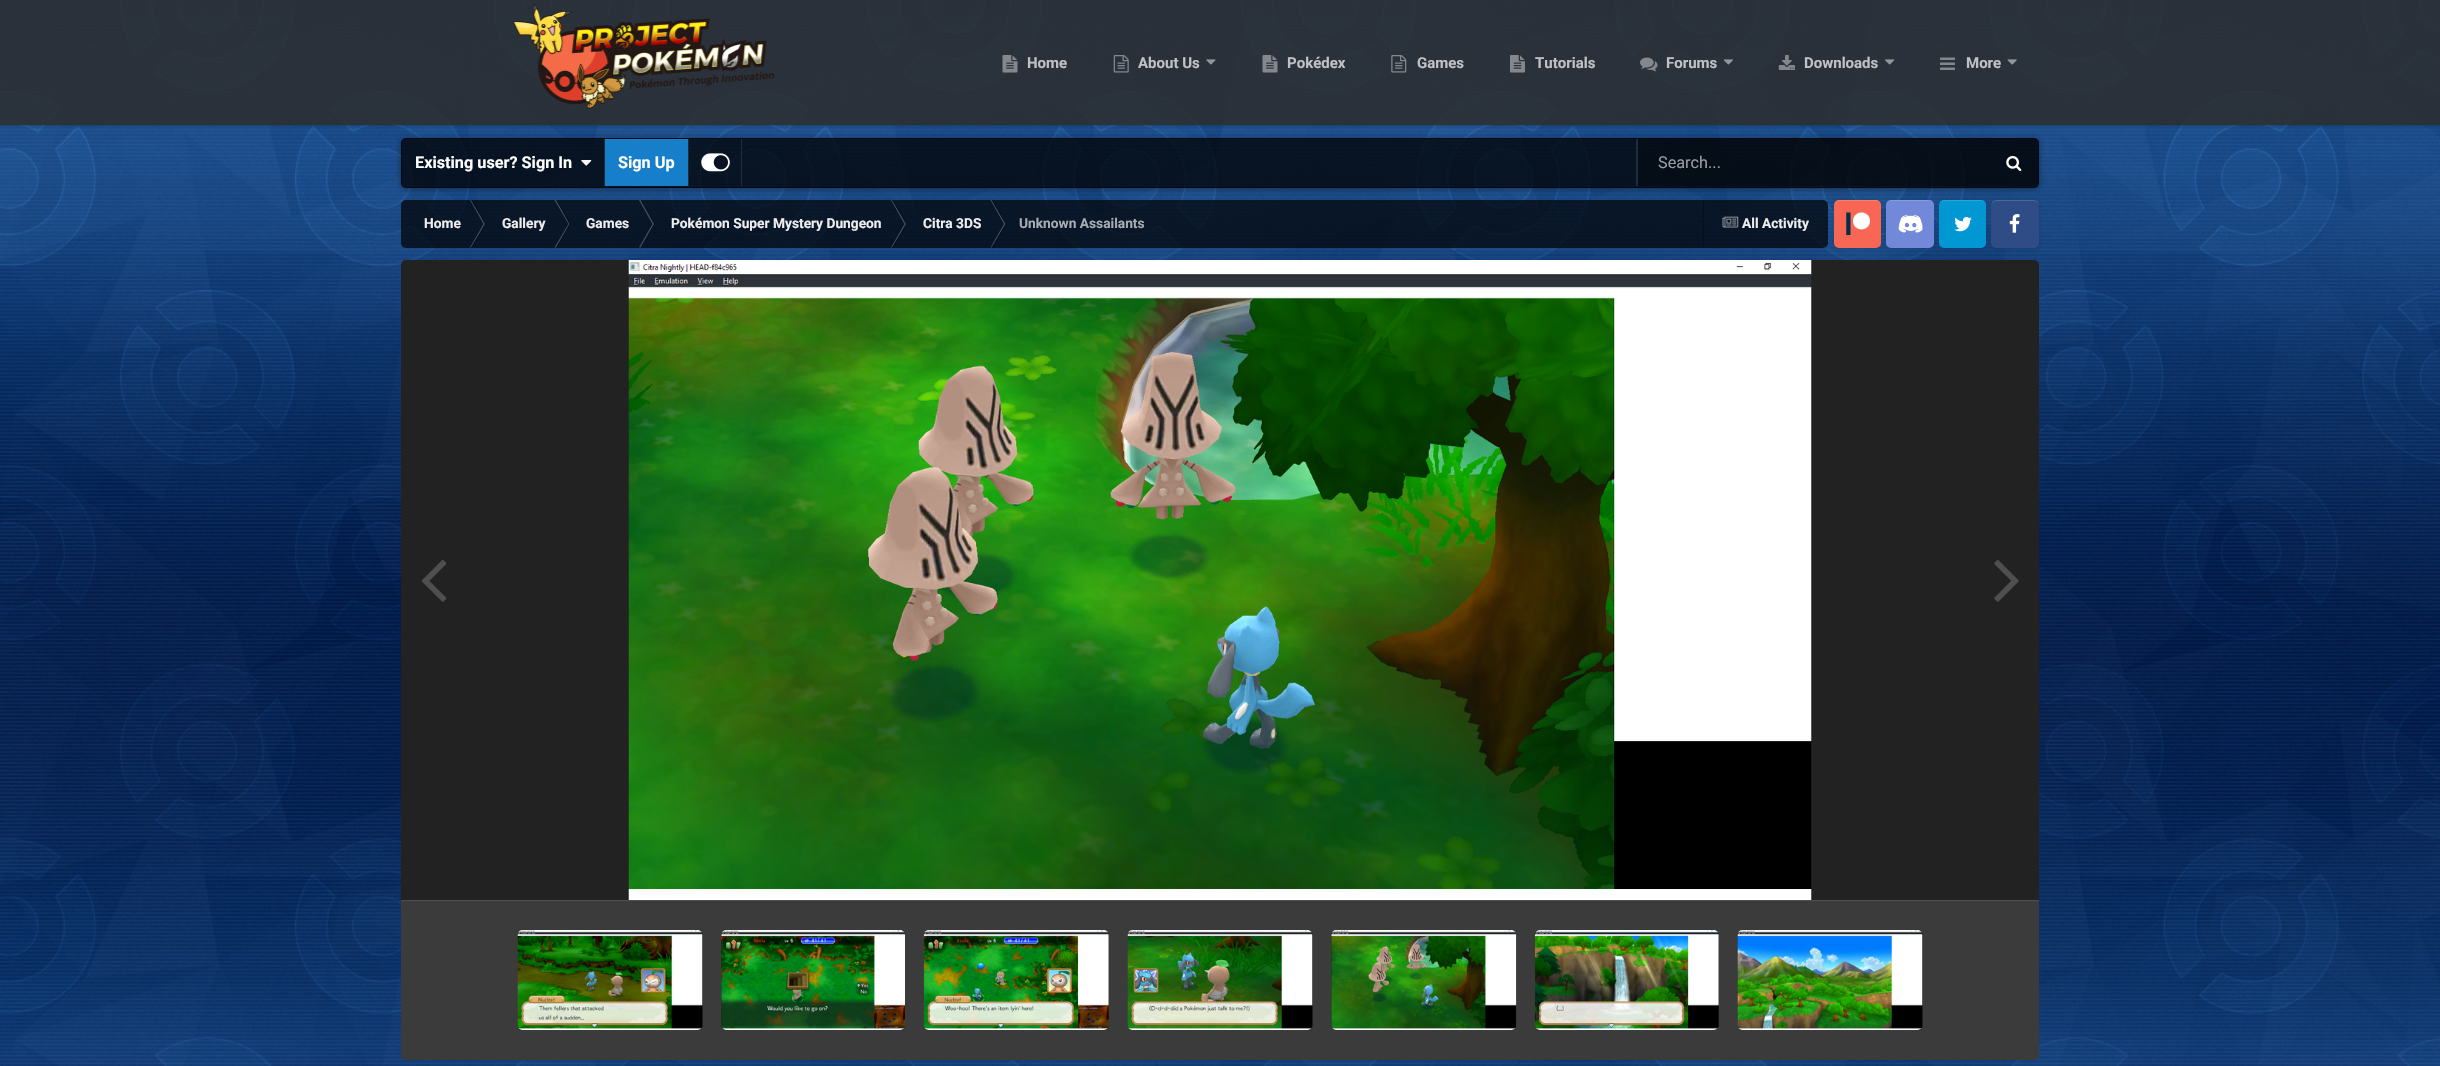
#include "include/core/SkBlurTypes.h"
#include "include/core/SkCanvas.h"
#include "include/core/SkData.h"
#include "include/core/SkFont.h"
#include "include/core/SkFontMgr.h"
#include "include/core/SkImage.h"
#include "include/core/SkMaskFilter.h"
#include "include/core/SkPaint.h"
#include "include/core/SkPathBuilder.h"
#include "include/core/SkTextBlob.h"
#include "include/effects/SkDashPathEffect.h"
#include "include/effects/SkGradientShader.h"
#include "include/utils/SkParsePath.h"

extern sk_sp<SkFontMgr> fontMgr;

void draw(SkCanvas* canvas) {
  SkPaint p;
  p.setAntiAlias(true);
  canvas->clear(SK_ColorWHITE);
  canvas->drawImageRect(SkImages::DeferredFromEncodedData(SkData::MakeFromFileName("images/1.png")), SkRect::MakeLTRB(0, 0, 2440, 1066), SkSamplingOptions());
  canvas->drawImageRect(SkImages::DeferredFromEncodedData(SkData::MakeFromFileName("images/2.png")), SkRect::MakeLTRB(0, 0, 2440, 1066), SkSamplingOptions());
  p.setColor(SkColorSetARGB(26, 0, 0, 0));
  canvas->drawRect(SkRect::MakeLTRB(0, 125, 2440, 126), p);
  canvas->save();
  canvas->clipRect(SkRect::MakeLTRB(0, 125, 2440, 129));
  p.setColor(SkColorSetARGB(38, 0, 0, 0));
  p.setMaskFilter(SkMaskFilter::MakeBlur(kNormal_SkBlurStyle, 2.5f));
  canvas->drawRect(SkRect::MakeLTRB(0, 1, 2440, 126), p);
  p.setMaskFilter(nullptr);
  canvas->restore();
  p.setColor(SkColorSetARGB(217, 44, 44, 44));
  canvas->drawRect(SkRect::MakeLTRB(0, 0, 2440, 125), p);
  canvas->drawImageRect(SkImages::DeferredFromEncodedData(SkData::MakeFromFileName("images/3.png")), SkRect::MakeLTRB(513, 4, 775, 109), SkSamplingOptions());
  canvas->drawImageRect(SkImages::DeferredFromEncodedData(SkData::MakeFromFileName("images/4.png")), SkRect::MakeLTRB(1002, 55, 1018, 73), SkSamplingOptions());
  canvas->drawImageRect(SkImages::DeferredFromEncodedData(SkData::MakeFromFileName("images/5.png")), SkRect::MakeLTRB(1113, 55, 1129, 73), SkSamplingOptions());
  canvas->drawImageRect(SkImages::DeferredFromEncodedData(SkData::MakeFromFileName("images/6.png")), SkRect::MakeLTRB(1206, 59, 1216, 65), SkSamplingOptions());
  canvas->drawImageRect(SkImages::DeferredFromEncodedData(SkData::MakeFromFileName("images/7.png")), SkRect::MakeLTRB(1262, 55, 1278, 73), SkSamplingOptions());
  canvas->drawImageRect(SkImages::DeferredFromEncodedData(SkData::MakeFromFileName("images/8.png")), SkRect::MakeLTRB(1391, 55, 1407, 73), SkSamplingOptions());
  canvas->drawImageRect(SkImages::DeferredFromEncodedData(SkData::MakeFromFileName("images/9.png")), SkRect::MakeLTRB(1510, 55, 1525, 73), SkSamplingOptions());
  canvas->drawImageRect(SkImages::DeferredFromEncodedData(SkData::MakeFromFileName("images/10.png")), SkRect::MakeLTRB(1640, 57, 1658, 72), SkSamplingOptions());
  canvas->drawImageRect(SkImages::DeferredFromEncodedData(SkData::MakeFromFileName("images/11.png")), SkRect::MakeLTRB(1723, 59, 1733, 65), SkSamplingOptions());
  canvas->drawImageRect(SkImages::DeferredFromEncodedData(SkData::MakeFromFileName("images/12.png")), SkRect::MakeLTRB(1778, 55, 1795, 70), SkSamplingOptions());
  canvas->drawImageRect(SkImages::DeferredFromEncodedData(SkData::MakeFromFileName("images/13.png")), SkRect::MakeLTRB(1885, 59, 1895, 65), SkSamplingOptions());
  canvas->drawImageRect(SkImages::DeferredFromEncodedData(SkData::MakeFromFileName("images/14.png")), SkRect::MakeLTRB(1940, 57, 1955, 70), SkSamplingOptions());
  canvas->drawImageRect(SkImages::DeferredFromEncodedData(SkData::MakeFromFileName("images/15.png")), SkRect::MakeLTRB(2007, 59, 2017, 65), SkSamplingOptions());
  canvas->save();
  canvas->clipPath(SkPathBuilder(SkPathFillType::kEvenOdd).moveTo(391, 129).lineTo(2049, 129).lineTo(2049, 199).lineTo(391, 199).close().moveTo(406, 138).lineTo(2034, 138).cubicTo(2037, 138, 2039, 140, 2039, 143).lineTo(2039, 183).cubicTo(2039, 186, 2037, 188, 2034, 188).lineTo(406, 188).cubicTo(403, 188, 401, 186, 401, 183).lineTo(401, 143).cubicTo(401, 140, 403, 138, 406, 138).close().detach(), true);
  p.setColor(SkColorSetARGB(102, 0, 0, 0));
  p.setMaskFilter(SkMaskFilter::MakeBlur(kNormal_SkBlurStyle, 3));
  canvas->drawRoundRect(SkRect::MakeLTRB(401, 139, 2039, 189), 5, 5, p);
  p.setMaskFilter(nullptr);
  canvas->restore();
  p.setColor(SkColorSetARGB(191, 0, 0, 0));
  canvas->drawRoundRect(SkRect::MakeLTRB(401, 138, 2039, 188), 5, 5, p);
  p.setStyle(SkPaint::kStroke_Style);
  p.setStrokeWidth(1);
  p.setColor(SkColorSetARGB(128, 0, 0, 0));
  canvas->drawRoundRect(SkRect::MakeLTRB(401.5f, 138.5f, 2038.5f, 187.5f), 4.5f, 4.5f, p);
  p.setStyle(SkPaint::kFill_Style);
  p.setColor(SkColorSetARGB(26, 255, 255, 255));
  canvas->drawRect(SkRect::MakeLTRB(604, 139, 605, 186), p);
  canvas->drawImageRect(SkImages::DeferredFromEncodedData(SkData::MakeFromFileName("images/16.png")), SkRect::MakeLTRB(581, 160, 592, 166), SkSamplingOptions());
  canvas->drawRect(SkRect::MakeLTRB(688, 139, 689, 186), p);
  p.setColor(SkColorSetRGB(23, 126, 201));
  canvas->drawRect(SkRect::MakeLTRB(605, 139, 688, 186), p);
  p.setColor(SkColorSetARGB(26, 255, 255, 255));
  canvas->drawRect(SkRect::MakeLTRB(741, 139, 742, 186), p);
  canvas->drawImageRect(SkImages::DeferredFromEncodedData(SkData::MakeFromFileName("images/17.png")), SkRect::MakeLTRB(701, 153, 730, 172), SkSamplingOptions());
  canvas->drawRect(SkRect::MakeLTRB(1636, 139, 1638, 186), p);
  p.setColor(SkColorSetARGB(77, 0, 0, 0));
  canvas->drawPath(SkPathBuilder().moveTo(1638, 139).lineTo(2033, 139).cubicTo(2036, 139, 2038, 141, 2038, 144).lineTo(2038, 181).cubicTo(2038, 184, 2036, 186, 2033, 186).lineTo(1638, 186).close().detach(), p);
  canvas->drawImageRect(SkImages::DeferredFromEncodedData(SkData::MakeFromFileName("images/18.png")), SkRect::MakeLTRB(2006, 156, 2022, 172), SkSamplingOptions());
  p.setColor(SkColorSetARGB(179, 0, 0, 0));
  canvas->drawRoundRect(SkRect::MakeLTRB(401, 200, 1828, 248), 5, 5, p);
  p.setColor(SkColorSetARGB(64, 255, 255, 255));
  canvas->drawPath(SkPathBuilder().moveTo(470, 200).lineTo(471, 200).lineTo(485, 224).lineTo(483.5f, 224).close().detach(), p);
  p.setColor(SkColorSetARGB(77, 0, 0, 0));
  canvas->drawPath(SkPathBuilder().moveTo(471, 200).lineTo(472.5f, 200).lineTo(486, 224).lineTo(485, 224).close().detach(), p);
  p.setColor(SkColorSetARGB(64, 255, 255, 255));
  canvas->drawPath(SkPathBuilder().moveTo(470, 247.5f).lineTo(471, 247.5f).lineTo(485, 224).lineTo(483.5f, 224).close().detach(), p);
  p.setColor(SkColorSetARGB(77, 0, 0, 0));
  canvas->drawPath(SkPathBuilder().moveTo(471, 247.5f).lineTo(472.5f, 247.5f).lineTo(486, 224).lineTo(485, 224).close().detach(), p);
  p.setColor(SkColorSetARGB(64, 255, 255, 255));
  canvas->drawPath(SkPathBuilder().moveTo(554.5f, 200).lineTo(556, 200).lineTo(569.5f, 224).lineTo(568.5f, 224).close().detach(), p);
  p.setColor(SkColorSetARGB(77, 0, 0, 0));
  canvas->drawPath(SkPathBuilder().moveTo(556, 200).lineTo(557, 200).lineTo(571, 224).lineTo(569.5f, 224).close().detach(), p);
  p.setColor(SkColorSetARGB(64, 255, 255, 255));
  canvas->drawPath(SkPathBuilder().moveTo(554.5f, 247.5f).lineTo(556, 247.5f).lineTo(569.5f, 224).lineTo(568.5f, 224).close().detach(), p);
  p.setColor(SkColorSetARGB(77, 0, 0, 0));
  canvas->drawPath(SkPathBuilder().moveTo(556, 247.5f).lineTo(557, 247.5f).lineTo(571, 224).lineTo(569.5f, 224).close().detach(), p);
  p.setColor(SkColorSetARGB(64, 255, 255, 255));
  canvas->drawPath(SkPathBuilder().moveTo(639, 200).lineTo(640.5f, 200).lineTo(654, 224).lineTo(652.5f, 224).close().detach(), p);
  p.setColor(SkColorSetARGB(77, 0, 0, 0));
  canvas->drawPath(SkPathBuilder().moveTo(640.5f, 200).lineTo(641.5f, 200).lineTo(655, 224).lineTo(654, 224).close().detach(), p);
  p.setColor(SkColorSetARGB(64, 255, 255, 255));
  canvas->drawPath(SkPathBuilder().moveTo(639, 247.5f).lineTo(640.5f, 247.5f).lineTo(654, 224).lineTo(652.5f, 224).close().detach(), p);
  p.setColor(SkColorSetARGB(77, 0, 0, 0));
  canvas->drawPath(SkPathBuilder().moveTo(640.5f, 247.5f).lineTo(641.5f, 247.5f).lineTo(655, 224).lineTo(654, 224).close().detach(), p);
  p.setColor(SkColorSetARGB(64, 255, 255, 255));
  canvas->drawPath(SkPathBuilder().moveTo(891, 200).lineTo(892, 200).lineTo(906, 224).lineTo(904.5f, 224).close().detach(), p);
  p.setColor(SkColorSetARGB(77, 0, 0, 0));
  canvas->drawPath(SkPathBuilder().moveTo(892, 200).lineTo(893.5f, 200).lineTo(907, 224).lineTo(906, 224).close().detach(), p);
  p.setColor(SkColorSetARGB(64, 255, 255, 255));
  canvas->drawPath(SkPathBuilder().moveTo(891, 247.5f).lineTo(892, 247.5f).lineTo(906, 224).lineTo(904.5f, 224).close().detach(), p);
  p.setColor(SkColorSetARGB(77, 0, 0, 0));
  canvas->drawPath(SkPathBuilder().moveTo(892, 247.5f).lineTo(893.5f, 247.5f).lineTo(907, 224).lineTo(906, 224).close().detach(), p);
  p.setColor(SkColorSetARGB(64, 255, 255, 255));
  canvas->drawPath(SkPathBuilder().moveTo(990.5f, 200).lineTo(991.5f, 200).lineTo(1005.5f, 224).lineTo(1004, 224).close().detach(), p);
  p.setColor(SkColorSetARGB(77, 0, 0, 0));
  canvas->drawPath(SkPathBuilder().moveTo(991.5f, 200).lineTo(993, 200).lineTo(1006.5f, 224).lineTo(1005.5f, 224).close().detach(), p);
  p.setColor(SkColorSetARGB(64, 255, 255, 255));
  canvas->drawPath(SkPathBuilder().moveTo(990.5f, 247.5f).lineTo(991.5f, 247.5f).lineTo(1005.5f, 224).lineTo(1004, 224).close().detach(), p);
  p.setColor(SkColorSetARGB(77, 0, 0, 0));
  canvas->drawPath(SkPathBuilder().moveTo(991.5f, 247.5f).lineTo(993, 247.5f).lineTo(1006.5f, 224).lineTo(1005.5f, 224).close().detach(), p);
  canvas->drawRect(SkRect::MakeLTRB(1703, 200, 1704, 248), p);
  canvas->drawImageRect(SkImages::DeferredFromEncodedData(SkData::MakeFromFileName("images/19.png")), SkRect::MakeLTRB(1722, 216, 1739, 228), SkSamplingOptions());
  p.setColor(SkColorSetARGB(26, 0, 0, 0));
  p.setMaskFilter(SkMaskFilter::MakeBlur(kNormal_SkBlurStyle, 2));
  canvas->drawRoundRect(SkRect::MakeLTRB(1834, 201, 1881, 249), 5, 5, p);
  p.setMaskFilter(nullptr);
  p.setColor(SkColorSetRGB(248, 103, 84));
  canvas->drawRoundRect(SkRect::MakeLTRB(1834, 200, 1881, 248), 5, 5, p);
  p.setColor(SkColorSetARGB(38, 255, 255, 255));
  canvas->drawPath(SkPathBuilder().moveTo(1839, 201).cubicTo(1836, 201, 1834, 203, 1834, 206).cubicTo(1834, 199, 1840, 200, 1845, 200).lineTo(1870, 200).cubicTo(1875, 200, 1881, 199, 1881, 206).cubicTo(1881, 203, 1879, 201, 1876, 201).close().detach(), p);
  canvas->drawImageRect(SkImages::DeferredFromEncodedData(SkData::MakeFromFileName("images/20.png")), SkRect::MakeLTRB(1846, 212, 1870, 235), SkSamplingOptions());
  p.setColor(SkColorSetARGB(26, 0, 0, 0));
  p.setMaskFilter(SkMaskFilter::MakeBlur(kNormal_SkBlurStyle, 2));
  canvas->drawRoundRect(SkRect::MakeLTRB(1886, 201, 1934, 249), 5, 5, p);
  p.setMaskFilter(nullptr);
  p.setColor(SkColorSetRGB(114, 137, 218));
  canvas->drawRoundRect(SkRect::MakeLTRB(1886, 200, 1934, 248), 5, 5, p);
  p.setColor(SkColorSetARGB(38, 255, 255, 255));
  canvas->drawPath(SkPathBuilder().moveTo(1891, 201).cubicTo(1888, 201, 1886, 203, 1886, 206).cubicTo(1886, 199, 1892, 200, 1897, 200).lineTo(1923, 200).cubicTo(1928, 200, 1934, 199, 1934, 206).cubicTo(1934, 203, 1932, 201, 1929, 201).close().detach(), p);
  canvas->drawImageRect(SkImages::DeferredFromEncodedData(SkData::MakeFromFileName("images/21.png")), SkRect::MakeLTRB(1898, 215, 1923, 233), SkSamplingOptions());
  p.setColor(SkColorSetARGB(26, 0, 0, 0));
  p.setMaskFilter(SkMaskFilter::MakeBlur(kNormal_SkBlurStyle, 2));
  canvas->drawRoundRect(SkRect::MakeLTRB(1939, 201, 1986, 249), 5, 5, p);
  p.setMaskFilter(nullptr);
  p.setColor(SkColorSetRGB(0, 151, 211));
  canvas->drawRoundRect(SkRect::MakeLTRB(1939, 200, 1986, 248), 5, 5, p);
  p.setColor(SkColorSetARGB(38, 255, 255, 255));
  canvas->drawPath(SkPathBuilder().moveTo(1944, 201).cubicTo(1941, 201, 1939, 203, 1939, 206).cubicTo(1939, 199, 1945, 200, 1950, 200).lineTo(1975, 200).cubicTo(1980, 200, 1986, 199, 1986, 206).cubicTo(1986, 203, 1984, 201, 1981, 201).close().detach(), p);
  canvas->drawImageRect(SkImages::DeferredFromEncodedData(SkData::MakeFromFileName("images/22.png")), SkRect::MakeLTRB(1954, 217, 1972, 232), SkSamplingOptions());
  p.setColor(SkColorSetARGB(26, 0, 0, 0));
  p.setMaskFilter(SkMaskFilter::MakeBlur(kNormal_SkBlurStyle, 2));
  canvas->drawRoundRect(SkRect::MakeLTRB(1991, 201, 2039, 249), 5, 5, p);
  p.setMaskFilter(nullptr);
  p.setColor(SkColorSetRGB(48, 76, 135));
  canvas->drawRoundRect(SkRect::MakeLTRB(1991, 200, 2039, 248), 5, 5, p);
  p.setColor(SkColorSetARGB(38, 255, 255, 255));
  canvas->drawPath(SkPathBuilder().moveTo(1996, 201).cubicTo(1993, 201, 1991, 203, 1991, 206).cubicTo(1991, 199, 1997, 200, 2002, 200).lineTo(2028, 200).cubicTo(2033, 200, 2039, 199, 2039, 206).cubicTo(2039, 203, 2037, 201, 2034, 201).close().detach(), p);
  canvas->drawImageRect(SkImages::DeferredFromEncodedData(SkData::MakeFromFileName("images/23.png")), SkRect::MakeLTRB(2009, 214, 2020, 233), SkSamplingOptions());
  p.setColor(SkColorSetRGB(84, 84, 84));
  canvas->drawPath(SkPathBuilder().moveTo(406, 260).lineTo(2034, 260).cubicTo(2037, 260, 2039, 262, 2039, 265).lineTo(2039, 900).lineTo(401, 900).lineTo(401, 265).cubicTo(401, 262, 403, 260, 406, 260).close().detach(), p);
  p.setColor(SkColorSetARGB(153, 0, 0, 0));
  canvas->drawPath(SkPathBuilder().moveTo(406, 260).lineTo(2034, 260).cubicTo(2037, 260, 2039, 262, 2039, 265).lineTo(2039, 900).lineTo(401, 900).lineTo(401, 265).cubicTo(401, 262, 403, 260, 406, 260).close().detach(), p);
  canvas->drawImageRect(SkImages::DeferredFromEncodedData(SkData::MakeFromFileName("images/24.png")), SkRect::MakeLTRB(628, 260, 1812, 900), SkSamplingOptions());
  canvas->drawImageRect(SkImages::DeferredFromEncodedData(SkData::MakeFromFileName("images/25.png")), SkRect::MakeLTRB(422, 560, 447, 602), SkSamplingOptions());
  canvas->drawImageRect(SkImages::DeferredFromEncodedData(SkData::MakeFromFileName("images/26.png")), SkRect::MakeLTRB(1994, 560, 2019, 602), SkSamplingOptions());
  p.setColor(SkColorSetRGB(84, 84, 84));
  canvas->drawPath(SkPathBuilder().moveTo(401, 900).lineTo(2039, 900).lineTo(2039, 1055).cubicTo(2039, 1058, 2037, 1060, 2034, 1060).lineTo(406, 1060).cubicTo(403, 1060, 401, 1058, 401, 1055).close().detach(), p);
  p.setColor(SkColorSetARGB(77, 0, 0, 0));
  canvas->drawPath(SkPathBuilder().moveTo(401, 900).lineTo(2039, 900).lineTo(2039, 1055).cubicTo(2039, 1058, 2037, 1060, 2034, 1060).lineTo(406, 1060).cubicTo(403, 1060, 401, 1058, 401, 1055).close().detach(), p);
  p.setColor(SkColorSetRGB(78, 78, 78));
  canvas->drawRect(SkRect::MakeLTRB(401, 900, 2039, 901), p);
  p.setColor(SkColorSetRGB(20, 20, 20));
  canvas->drawRoundRect(SkRect::MakeLTRB(518, 930, 703, 1030), 5, 5, p);
  p.setColor(SkColorSetARGB(77, 84, 84, 84));
  canvas->drawRoundRect(SkRect::MakeLTRB(518, 930, 703, 1030), 5, 5, p);
  canvas->drawImageRect(SkImages::DeferredFromEncodedData(SkData::MakeFromFileName("images/27.png")), SkRect::MakeLTRB(517, 930, 703, 1030), SkSamplingOptions());
  p.setColor(SkColorSetRGB(20, 20, 20));
  canvas->drawRoundRect(SkRect::MakeLTRB(721, 930, 905, 1030), 5, 5, p);
  p.setColor(SkColorSetARGB(77, 84, 84, 84));
  canvas->drawRoundRect(SkRect::MakeLTRB(721, 930, 905, 1030), 5, 5, p);
  canvas->drawImageRect(SkImages::DeferredFromEncodedData(SkData::MakeFromFileName("images/28.png")), SkRect::MakeLTRB(721, 930, 905, 1030), SkSamplingOptions());
  p.setColor(SkColorSetRGB(20, 20, 20));
  canvas->drawRoundRect(SkRect::MakeLTRB(924, 930, 1109, 1030), 5, 5, p);
  p.setColor(SkColorSetARGB(77, 84, 84, 84));
  canvas->drawRoundRect(SkRect::MakeLTRB(924, 930, 1109, 1030), 5, 5, p);
  canvas->drawImageRect(SkImages::DeferredFromEncodedData(SkData::MakeFromFileName("images/29.png")), SkRect::MakeLTRB(923, 930, 1109, 1030), SkSamplingOptions());
  p.setColor(SkColorSetRGB(20, 20, 20));
  canvas->drawRoundRect(SkRect::MakeLTRB(1128, 930, 1313, 1030), 5, 5, p);
  p.setColor(SkColorSetARGB(77, 84, 84, 84));
  canvas->drawRoundRect(SkRect::MakeLTRB(1128, 930, 1313, 1030), 5, 5, p);
  canvas->drawImageRect(SkImages::DeferredFromEncodedData(SkData::MakeFromFileName("images/30.png")), SkRect::MakeLTRB(1127, 930, 1313, 1030), SkSamplingOptions());
  p.setColor(SkColorSetRGB(20, 20, 20));
  canvas->drawRoundRect(SkRect::MakeLTRB(1331, 930, 1516, 1030), 5, 5, p);
  p.setColor(SkColorSetARGB(77, 84, 84, 84));
  canvas->drawRoundRect(SkRect::MakeLTRB(1331, 930, 1516, 1030), 5, 5, p);
  canvas->drawImageRect(SkImages::DeferredFromEncodedData(SkData::MakeFromFileName("images/31.png")), SkRect::MakeLTRB(1331, 930, 1517, 1030), SkSamplingOptions());
  p.setColor(SkColorSetRGB(20, 20, 20));
  canvas->drawRoundRect(SkRect::MakeLTRB(1535, 930, 1719, 1030), 5, 5, p);
  p.setColor(SkColorSetARGB(77, 84, 84, 84));
  canvas->drawRoundRect(SkRect::MakeLTRB(1535, 930, 1719, 1030), 5, 5, p);
  canvas->drawImageRect(SkImages::DeferredFromEncodedData(SkData::MakeFromFileName("images/32.png")), SkRect::MakeLTRB(1535, 930, 1719, 1030), SkSamplingOptions());
  p.setColor(SkColorSetRGB(20, 20, 20));
  canvas->drawRoundRect(SkRect::MakeLTRB(1738, 930, 1923, 1030), 5, 5, p);
  p.setColor(SkColorSetARGB(77, 84, 84, 84));
  canvas->drawRoundRect(SkRect::MakeLTRB(1738, 930, 1923, 1030), 5, 5, p);
  canvas->drawImageRect(SkImages::DeferredFromEncodedData(SkData::MakeFromFileName("images/33.png")), SkRect::MakeLTRB(1737, 930, 1923, 1030), SkSamplingOptions());
  SkFont font1(fontMgr->matchFamilyStyle("Roboto", SkFontStyle::Bold()), 15);
  font1.setSubpixel(true);
  p.setColor(SkColorSetRGB(191, 193, 196));
  canvas->drawString("Home", 1027, 68, font1, p);
  canvas->drawString("About Us", 1138, 68, font1, p);
  canvas->drawString("Pokédex", 1287, 68, font1, p);
  canvas->drawString("Games", 1417, 68, font1, p);
  canvas->drawString("Tutorials", 1535, 68, font1, p);
  canvas->drawString("Forums", 1666, 68, font1, p);
  canvas->drawString("Downloads", 1804, 68, font1, p);
  canvas->drawString("More", 1966, 68, font1, p);
  SkFont font2(fontMgr->matchFamilyStyle("Roboto", SkFontStyle::Bold()), 16.25f);
  font2.setSubpixel(true);
  p.setColor(SK_ColorWHITE);
  canvas->drawString("Existing user? Sign In", 415, 168, font2, p);
  canvas->drawString("Sign Up", 618, 168, font2, p);
  SkFont font3(fontMgr->matchFamilyStyle("Roboto", SkFontStyle::Normal()), 16.25f);
  font3.setSubpixel(true);
  p.setColor(SkColorSetRGB(155, 158, 162));
  canvas->drawString("Search...", 1658, 168, font3, p);
  SkFont font4(fontMgr->matchFamilyStyle("Roboto", SkFontStyle::Bold()), 13.75f);
  font4.setSubpixel(true);
  p.setColor(SkColorSetRGB(237, 237, 237));
  canvas->drawString("Home", 424, 228, font4, p);
  canvas->drawString("Gallery", 502, 228, font4, p);
  canvas->drawString("Games", 586, 228, font4, p);
  canvas->drawString("Pokémon Super Mystery Dungeon", 671, 228, font4, p);
  canvas->drawString("Citra 3DS", 923, 228, font4, p);
  p.setColor(SkColorSetRGB(168, 172, 178));
  canvas->drawString("Unknown Assailants", 1019, 228, font4, p);
  p.setColor(SkColorSetRGB(237, 237, 237));
  canvas->drawString("All Activity", 1742, 228, font4, p);
}
